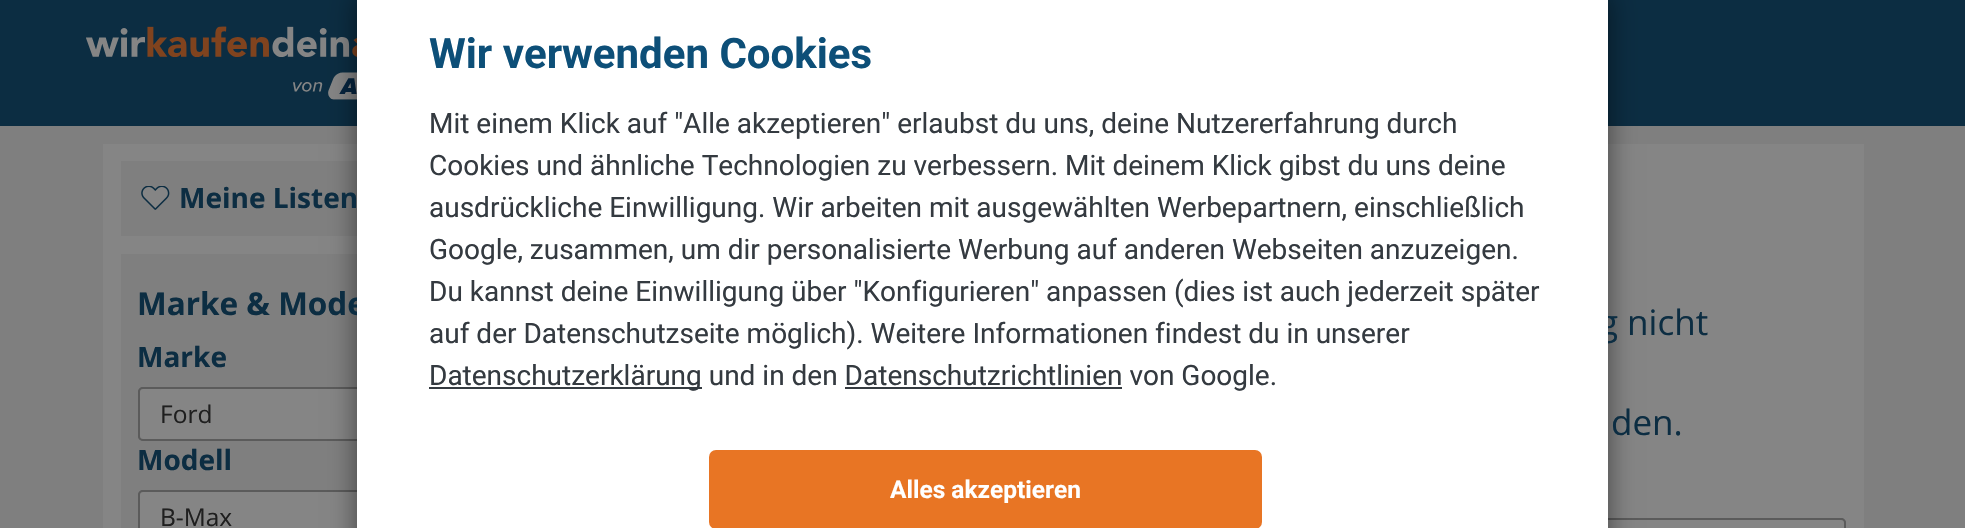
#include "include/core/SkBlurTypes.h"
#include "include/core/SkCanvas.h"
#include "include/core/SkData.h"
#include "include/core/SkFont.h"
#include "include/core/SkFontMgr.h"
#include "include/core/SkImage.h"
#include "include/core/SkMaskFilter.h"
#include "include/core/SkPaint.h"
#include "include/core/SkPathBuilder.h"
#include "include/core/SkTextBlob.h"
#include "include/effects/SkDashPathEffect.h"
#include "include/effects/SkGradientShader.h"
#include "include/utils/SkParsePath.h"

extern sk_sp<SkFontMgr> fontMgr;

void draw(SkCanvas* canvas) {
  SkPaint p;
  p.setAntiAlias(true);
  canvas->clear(SkColorSetRGB(127, 127, 127));
  p.setColor(SkColorSetRGB(12, 45, 66));
  canvas->drawRect(SkRect::MakeLTRB(0, 0, 1965, 126), p);
  canvas->drawImageRect(SkImages::DeferredFromEncodedData(SkData::MakeFromFileName("images/1.png")), SkRect::MakeLTRB(86, 26, 357, 100), SkSamplingOptions());
  p.setColor(SkColorSetRGB(133, 133, 133));
  canvas->drawRect(SkRect::MakeLTRB(103, 144, 1864, 528), p);
  p.setColor(SkColorSetRGB(127, 127, 127));
  canvas->drawRect(SkRect::MakeLTRB(121, 161, 357, 236), p);
  canvas->drawRect(SkRect::MakeLTRB(121, 254, 357, 528), p);
  p.setStyle(SkPaint::kStroke_Style);
  p.setStrokeWidth(2);
  p.setColor(SkColorSetRGB(91, 91, 91));
  canvas->drawRoundRect(SkRect::MakeLTRB(139, 388, 507, 440), 4, 4, p);
  p.setStyle(SkPaint::kFill_Style);
  p.setColor(SkColorSetRGB(133, 133, 133));
  canvas->drawRoundRect(SkRect::MakeLTRB(139, 388, 507, 440), 4, 4, p);
  p.setStyle(SkPaint::kStroke_Style);
  p.setColor(SkColorSetRGB(91, 91, 91));
  canvas->drawRoundRect(SkRect::MakeLTRB(139, 388, 507, 440), 4, 4, p);
  canvas->drawRoundRect(SkRect::MakeLTRB(139, 491, 507, 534), 4, 4, p);
  p.setStyle(SkPaint::kFill_Style);
  p.setColor(SkColorSetRGB(133, 133, 133));
  canvas->drawRoundRect(SkRect::MakeLTRB(139, 491, 507, 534), 4, 4, p);
  p.setStyle(SkPaint::kStroke_Style);
  p.setColor(SkColorSetRGB(91, 91, 91));
  canvas->drawRoundRect(SkRect::MakeLTRB(139, 491, 507, 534), 4, 4, p);
  canvas->drawRoundRect(SkRect::MakeLTRB(1419, 519, 1845, 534), 4, 4, p);
  p.setStyle(SkPaint::kFill_Style);
  p.setColor(SkColorSetRGB(133, 133, 133));
  canvas->drawRoundRect(SkRect::MakeLTRB(1419, 519, 1845, 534), 4, 4, p);
  p.setStyle(SkPaint::kStroke_Style);
  p.setColor(SkColorSetRGB(91, 91, 91));
  canvas->drawRoundRect(SkRect::MakeLTRB(1419, 519, 1845, 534), 4, 4, p);
  p.setStyle(SkPaint::kFill_Style);
  p.setColor(SkColorSetARGB(128, 0, 0, 0));
  p.setMaskFilter(SkMaskFilter::MakeBlur(kNormal_SkBlurStyle, 13));
  canvas->drawRect(SkRect::MakeLTRB(357, -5, 1608, 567), p);
  p.setMaskFilter(nullptr);
  canvas->drawImageRect(SkImages::DeferredFromEncodedData(SkData::MakeFromFileName("images/2.png")), SkRect::MakeLTRB(141, 186, 170, 210), SkSamplingOptions());
  SkFont font1(fontMgr->matchFamilyStyle("Open Sans", SkFontStyle::Bold()), 28);
  font1.setSubpixel(true);
  p.setColor(SkColorSetRGB(12, 45, 66));
  canvas->drawString("Meine Listen", 179, 208, font1, p);
  SkFont font2(fontMgr->matchFamilyStyle("Open Sans", SkFontStyle::Bold()), 31.5f);
  font2.setSubpixel(true);
  canvas->drawString("Marke & Mode", 137, 315, font2, p);
  canvas->drawString("Marke", 137, 367, font1, p);
  SkFont font3(fontMgr->matchFamilyStyle("Open Sans", SkFontStyle::Normal()), 24.5f);
  font3.setSubpixel(true);
  p.setColor(SkColorSetRGB(31, 31, 31));
  canvas->drawString("Ford", 160, 423, font3, p);
  p.setColor(SkColorSetRGB(12, 45, 66));
  canvas->drawString("Modell", 137, 470, font1, p);
  p.setColor(SkColorSetRGB(31, 31, 31));
  canvas->drawString("B-Max", 160, 526, font3, p);
  SkFont font4(fontMgr->matchFamilyStyle("Open Sans", SkFontStyle::Normal()), 35);
  font4.setSubpixel(true);
  p.setColor(SkColorSetRGB(12, 45, 66));
  canvas->drawString("g nicht", 1599, 335, font4, p);
  p.setColor(SK_ColorWHITE);
  canvas->drawRect(SkRect::MakeLTRB(357, 0, 1608, 528), p);
  p.setColor(SkColorSetRGB(232, 117, 36));
  canvas->drawRoundRect(SkRect::MakeLTRB(709, 450, 1262, 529), 7, 7, p);
  SkFont font5(fontMgr->matchFamilyStyle("Roboto", SkFontStyle::Bold()), 24.5f);
  font5.setSubpixel(true);
  p.setColor(SK_ColorWHITE);
  canvas->drawString("Alles akzeptieren", 890, 498, font5, p);
  p.setColor(SkColorSetRGB(52, 58, 64));
  canvas->drawRect(SkRect::MakeLTRB(845, 387, 1122, 389), p);
  canvas->drawRect(SkRect::MakeLTRB(429, 387, 702, 389), p);
  SkFont font6(fontMgr->matchFamilyStyle("Roboto", SkFontStyle::Normal()), 28);
  font6.setSubpixel(true);
  canvas->drawString("Datenschutzerklärung und in den Datenschutzrichtlinien von Google.", 429, 385, font6, p);
  canvas->drawString("auf der Datenschutzseite möglich). Weitere Informationen findest du in unserer", 429, 343, font6, p);
  canvas->drawString("Du kannst deine Einwilligung über \"Konfigurieren\" anpassen (dies ist auch jederzeit später", 429, 301, font6, p);
  canvas->drawString("Google, zusammen, um dir personalisierte Werbung auf anderen Webseiten anzuzeigen.", 429, 259, font6, p);
  canvas->drawString("ausdrückliche Einwilligung. Wir arbeiten mit ausgewählten Werbepartnern, einschließlich", 429, 217, font6, p);
  canvas->drawString("Cookies und ähnliche Technologien zu verbessern. Mit deinem Klick gibst du uns deine", 429, 175, font6, p);
  canvas->drawString("Mit einem Klick auf \"Alle akzeptieren\" erlaubst du uns, deine Nutzererfahrung durch", 429, 133, font6, p);
  SkFont font7(fontMgr->matchFamilyStyle("Roboto", SkFontStyle::Bold()), 42);
  font7.setSubpixel(true);
  p.setColor(SkColorSetRGB(13, 79, 120));
  canvas->drawString("Wir verwenden Cookies", 429, 68, font7, p);
  p.setColor(SkColorSetRGB(12, 45, 66));
  canvas->drawString("den.", 1611, 435, font4, p);
}
